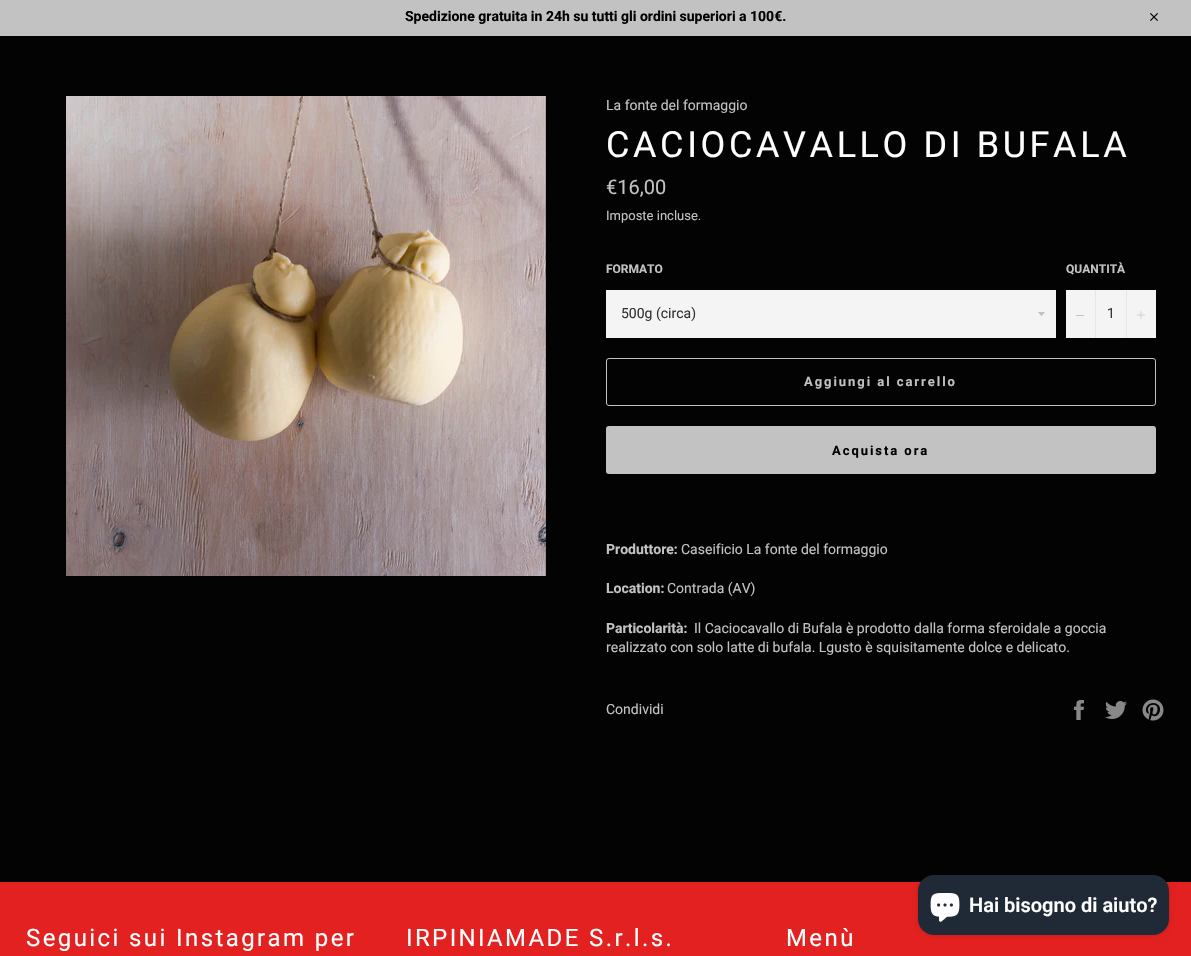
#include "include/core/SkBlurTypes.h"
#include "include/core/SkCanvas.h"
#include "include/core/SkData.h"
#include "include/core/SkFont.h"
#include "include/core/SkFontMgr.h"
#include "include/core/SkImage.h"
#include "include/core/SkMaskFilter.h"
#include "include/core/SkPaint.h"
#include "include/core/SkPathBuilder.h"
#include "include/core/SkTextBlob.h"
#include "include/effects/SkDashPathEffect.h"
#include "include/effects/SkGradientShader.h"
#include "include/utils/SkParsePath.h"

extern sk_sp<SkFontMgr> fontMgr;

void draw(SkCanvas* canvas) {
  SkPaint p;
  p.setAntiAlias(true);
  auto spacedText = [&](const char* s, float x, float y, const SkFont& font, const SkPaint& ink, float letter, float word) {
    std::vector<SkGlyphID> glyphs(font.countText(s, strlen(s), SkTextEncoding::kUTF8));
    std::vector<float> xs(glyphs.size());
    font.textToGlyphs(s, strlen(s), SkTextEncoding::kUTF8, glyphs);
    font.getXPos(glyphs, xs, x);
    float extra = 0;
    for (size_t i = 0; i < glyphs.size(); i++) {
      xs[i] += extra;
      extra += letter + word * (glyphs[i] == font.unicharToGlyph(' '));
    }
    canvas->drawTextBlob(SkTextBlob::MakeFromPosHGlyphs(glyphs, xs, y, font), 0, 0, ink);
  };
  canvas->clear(SkColorSetRGB(3, 3, 3));
  p.setColor(SkColorSetRGB(194, 194, 194));
  canvas->drawRect(SkRect::MakeLTRB(0, 0, 1191, 36), p);
  canvas->drawImageRect(SkImages::DeferredFromEncodedData(SkData::MakeFromFileName("images/1.png")), SkRect::MakeLTRB(1150, 13, 1158, 21), SkSamplingOptions());
  canvas->drawImageRect(SkImages::DeferredFromEncodedData(SkData::MakeFromFileName("images/2.png")), SkRect::MakeLTRB(66, 96, 546, 576), SkSamplingOptions());
  p.setColor(SkColorSetRGB(244, 244, 244));
  canvas->drawRect(SkRect::MakeLTRB(606, 290, 1056, 338), p);
  p.setColor(SkColorSetRGB(194, 194, 194));
  canvas->drawPath(SkPathBuilder().moveTo(1038, 312).cubicTo(1042.5f, 317.5f, 1040.5f, 317.5f, 1045, 312).close().detach(), p);
  p.setColor(SkColorSetRGB(244, 244, 244));
  canvas->drawRect(SkRect::MakeLTRB(1066, 290, 1156, 338), p);
  p.setColor(SkColorSetRGB(231, 231, 231));
  canvas->drawRect(SkRect::MakeLTRB(1095, 290, 1096, 338), p);
  p.setColor(SkColorSetRGB(194, 194, 194));
  canvas->drawRect(SkRect::MakeLTRB(1076, 315, 1084, 316), p);
  p.setColor(SkColorSetRGB(231, 231, 231));
  canvas->drawRect(SkRect::MakeLTRB(1126, 290, 1127, 338), p);
  canvas->drawImageRect(SkImages::DeferredFromEncodedData(SkData::MakeFromFileName("images/3.png")), SkRect::MakeLTRB(1137, 311, 1145, 319), SkSamplingOptions());
  p.setStyle(SkPaint::kStroke_Style);
  p.setStrokeWidth(1);
  p.setColor(SkColorSetRGB(194, 194, 194));
  canvas->drawRoundRect(SkRect::MakeLTRB(606.5f, 358.5f, 1155.5f, 405.5f), 2.5f, 2.5f, p);
  p.setStyle(SkPaint::kFill_Style);
  canvas->drawRoundRect(SkRect::MakeLTRB(606, 426, 1156, 474), 3, 3, p);
  canvas->drawImageRect(SkImages::DeferredFromEncodedData(SkData::MakeFromFileName("images/4.png")), SkRect::MakeLTRB(1074, 700, 1084, 720), SkSamplingOptions());
  canvas->drawImageRect(SkImages::DeferredFromEncodedData(SkData::MakeFromFileName("images/5.png")), SkRect::MakeLTRB(1105, 701, 1127, 719), SkSamplingOptions());
  canvas->drawImageRect(SkImages::DeferredFromEncodedData(SkData::MakeFromFileName("images/6.png")), SkRect::MakeLTRB(1142, 699, 1164, 721), SkSamplingOptions());
  p.setColor(SkColorSetRGB(226, 33, 32));
  canvas->drawRect(SkRect::MakeLTRB(0, 882, 1191, 956), p);
  p.setColor(SkColorSetARGB(38, 0, 0, 0));
  p.setMaskFilter(SkMaskFilter::MakeBlur(kNormal_SkBlurStyle, 2.5f));
  canvas->drawRoundRect(SkRect::MakeLTRB(918, 875, 1169, 935), 16, 16, p);
  p.setMaskFilter(nullptr);
  p.setColor(SkColorSetRGB(32, 42, 54));
  canvas->drawRoundRect(SkRect::MakeLTRB(918, 875, 1169, 935), 16, 16, p);
  canvas->drawImageRect(SkImages::DeferredFromEncodedData(SkData::MakeFromFileName("images/7.png")), SkRect::MakeLTRB(930, 893, 960, 922), SkSamplingOptions());
  SkFont font1(fontMgr->matchFamilyStyle("Roboto", SkFontStyle::Bold()), 14);
  font1.setSubpixel(true);
  p.setColor(SK_ColorBLACK);
  canvas->drawString("Spedizione gratuita in 24h su tutti gli ordini superiori a 100€.", 405, 21, font1, p);
  SkFont font2(fontMgr->matchFamilyStyle("Roboto", SkFontStyle::Normal()), 14);
  font2.setSubpixel(true);
  p.setColor(SkColorSetRGB(194, 194, 194));
  canvas->drawString("La fonte del formaggio", 606, 110, font2, p);
  SkFont font3(fontMgr->matchFamilyStyle("Roboto", SkFontStyle::Normal()), 36);
  font3.setSubpixel(true);
  p.setColor(SK_ColorWHITE);
  spacedText("CACIOCAVALLO DI BUFALA", 606, 157, font3, p, 3.6f, 0);
  SkFont font4(fontMgr->matchFamilyStyle("Roboto", SkFontStyle::Normal()), 20);
  font4.setSubpixel(true);
  p.setColor(SkColorSetRGB(194, 194, 194));
  canvas->drawString("€16,00", 606, 194, font4, p);
  SkFont font5(fontMgr->matchFamilyStyle("Roboto", SkFontStyle::Normal()), 13);
  font5.setSubpixel(true);
  canvas->drawString("Imposte incluse.", 606, 220, font5, p);
  SkFont font6(fontMgr->matchFamilyStyle("Roboto", SkFontStyle::Bold()), 12);
  font6.setSubpixel(true);
  canvas->drawString("FORMATO", 606, 273, font6, p);
  p.setColor(SkColorSetRGB(51, 51, 51));
  canvas->drawString("500g (circa)", 621, 318, font2, p);
  p.setColor(SkColorSetRGB(194, 194, 194));
  canvas->drawString("QUANTITÀ", 1066, 273, font6, p);
  p.setColor(SkColorSetRGB(51, 51, 51));
  canvas->drawString("1", 1107, 318, font2, p);
  SkFont font7(fontMgr->matchFamilyStyle("Roboto", SkFontStyle::Bold()), 13);
  font7.setSubpixel(true);
  p.setColor(SkColorSetRGB(194, 194, 194));
  spacedText("Aggiungi al carrello", 804, 386, font7, p, 1.95f, 0);
  p.setColor(SK_ColorBLACK);
  spacedText("Acquista ora", 832, 455, font7, p, 1.95f, 0);
  p.setColor(SkColorSetRGB(194, 194, 194));
  canvas->drawString("Produttore:", 606, 554, font1, p);
  canvas->drawString("Caseificio La fonte del formaggio", 681, 554, font2, p);
  canvas->drawString("Location:", 606, 593, font1, p);
  canvas->drawString("Contrada (AV)", 667, 593, font2, p);
  canvas->drawString("Particolarità:", 606, 633, font1, p);
  canvas->drawString("Il Caciocavallo di Bufala è prodotto dalla forma sferoidale a goccia", 694, 633, font2, p);
  canvas->drawString("realizzato con solo latte di bufala. Lgusto è squisitamente dolce e delicato.", 606, 652, font2, p);
  canvas->drawString("Condividi", 606, 714, font2, p);
  SkFont font8(fontMgr->matchFamilyStyle("Roboto", SkFontStyle::Normal()), 24);
  font8.setSubpixel(true);
  p.setColor(SK_ColorWHITE);
  spacedText("Seguici sui Instagram per", 26, 946, font8, p, 2.4f, 0);
  spacedText("IRPINIAMADE S.r.l.s.", 406, 946, font8, p, 2.4f, 0);
  spacedText("Menù", 786, 946, font8, p, 2.4f, 0);
  SkFont font9(fontMgr->matchFamilyStyle("Roboto", SkFontStyle(600, SkFontStyle::kNormal_Width, SkFontStyle::kUpright_Slant)), 20);
  font9.setSubpixel(true);
  canvas->drawString("Hai bisogno di aiuto?", 969, 912, font9, p);
}
